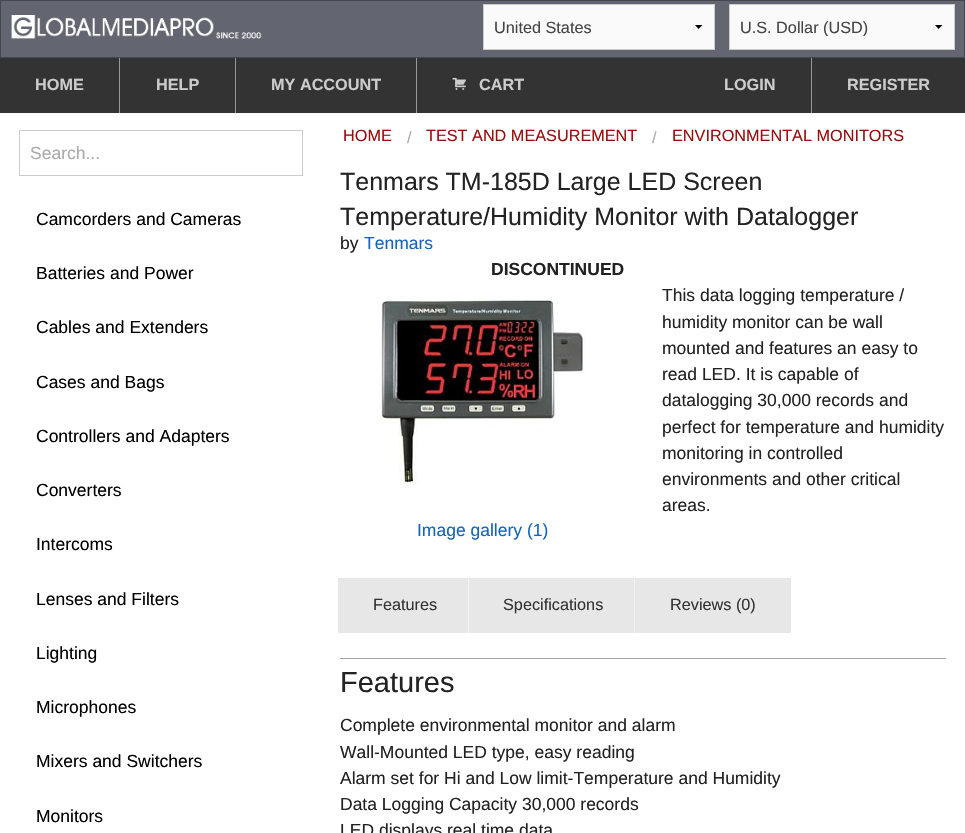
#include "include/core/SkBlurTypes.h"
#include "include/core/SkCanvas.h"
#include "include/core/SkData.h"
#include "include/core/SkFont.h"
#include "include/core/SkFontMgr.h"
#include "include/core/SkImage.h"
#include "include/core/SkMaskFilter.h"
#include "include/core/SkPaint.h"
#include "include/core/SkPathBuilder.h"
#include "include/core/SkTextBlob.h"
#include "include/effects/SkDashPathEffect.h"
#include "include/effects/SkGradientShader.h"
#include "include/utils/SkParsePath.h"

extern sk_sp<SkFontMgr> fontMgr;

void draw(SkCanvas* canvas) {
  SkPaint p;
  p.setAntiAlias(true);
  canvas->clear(SkColorSetRGB(99, 101, 113));
  p.setStyle(SkPaint::kStroke_Style);
  p.setStrokeWidth(1);
  p.setColor(SkColorSetRGB(69, 71, 79));
  canvas->drawRect(SkRect::MakeLTRB(0.5f, 0.5f, 964.5f, 57.5f), p);
  canvas->drawImageRect(SkImages::DeferredFromEncodedData(SkData::MakeFromFileName("images/1.png")), SkRect::MakeLTRB(11, 15, 262, 39), SkSamplingOptions());
  p.setStyle(SkPaint::kFill_Style);
  p.setColor(SkColorSetRGB(250, 250, 250));
  canvas->drawRect(SkRect::MakeLTRB(484, 5, 714, 49), p);
  p.setColor(SK_ColorBLACK);
  canvas->drawPath(SkPathBuilder().moveTo(702.5f, 25).lineTo(698.5f, 29).lineTo(695, 25).close().detach(), p);
  p.setStyle(SkPaint::kStroke_Style);
  p.setColor(SkColorSetRGB(204, 204, 204));
  canvas->drawRect(SkRect::MakeLTRB(483.5f, 4.5f, 714.5f, 49.5f), p);
  p.setStyle(SkPaint::kFill_Style);
  p.setColor(SkColorSetRGB(250, 250, 250));
  canvas->drawRect(SkRect::MakeLTRB(730, 5, 954, 49), p);
  p.setColor(SK_ColorBLACK);
  canvas->drawPath(SkPathBuilder().moveTo(942.5f, 25).lineTo(938.5f, 29).lineTo(935, 25).close().detach(), p);
  p.setStyle(SkPaint::kStroke_Style);
  p.setColor(SkColorSetRGB(204, 204, 204));
  canvas->drawRect(SkRect::MakeLTRB(729.5f, 4.5f, 954.5f, 49.5f), p);
  p.setStyle(SkPaint::kFill_Style);
  p.setColor(SkColorSetRGB(51, 51, 51));
  canvas->drawRect(SkRect::MakeLTRB(0, 58, 965, 113), p);
  p.setColor(SkColorSetRGB(153, 153, 153));
  canvas->drawRect(SkRect::MakeLTRB(119, 58, 120, 113), p);
  canvas->drawRect(SkRect::MakeLTRB(235, 58, 236, 113), p);
  canvas->drawRect(SkRect::MakeLTRB(416, 58, 417, 113), p);
  canvas->drawImageRect(SkImages::DeferredFromEncodedData(SkData::MakeFromFileName("images/2.png")), SkRect::MakeLTRB(452, 77, 466, 90), SkSamplingOptions());
  canvas->drawRect(SkRect::MakeLTRB(811, 58, 812, 113), p);
  p.setColor(SK_ColorWHITE);
  canvas->drawRect(SkRect::MakeLTRB(0, 113, 965, 833), p);
  p.setStyle(SkPaint::kStroke_Style);
  p.setColor(SkColorSetRGB(204, 204, 204));
  canvas->drawRect(SkRect::MakeLTRB(19.5f, 130.5f, 302.5f, 175.5f), p);
  canvas->drawImageRect(SkImages::DeferredFromEncodedData(SkData::MakeFromFileName("images/3.png")), SkRect::MakeLTRB(379, 296, 586, 489), SkSamplingOptions());
  p.setStyle(SkPaint::kFill_Style);
  p.setColor(SkColorSetRGB(231, 231, 231));
  canvas->drawRect(SkRect::MakeLTRB(338, 578, 468, 633), p);
  canvas->drawRect(SkRect::MakeLTRB(469, 578, 634, 633), p);
  p.setColor(SkColorSetRGB(243, 243, 243));
  canvas->drawRect(SkRect::MakeLTRB(468, 578, 469, 633), p);
  p.setColor(SkColorSetRGB(231, 231, 231));
  canvas->drawRect(SkRect::MakeLTRB(635, 578, 791, 633), p);
  p.setColor(SkColorSetRGB(243, 243, 243));
  canvas->drawRect(SkRect::MakeLTRB(634, 578, 635, 633), p);
  p.setColor(SkColorSetRGB(162, 162, 162));
  canvas->drawRect(SkRect::MakeLTRB(340, 658, 946, 659), p);
  SkFont font1(fontMgr->matchFamilyStyle("Liberation Sans", SkFontStyle::Normal()), 16.25f);
  font1.setSubpixel(true);
  p.setColor(SkColorSetRGB(68, 68, 68));
  canvas->drawString("United States", 494, 33, font1, p);
  canvas->save();
  canvas->clipRect(SkRect::MakeLTRB(740, 18, 933, 36));
  canvas->drawString("U.S. Dollar (USD)", 740, 33, font1, p);
  canvas->restore();
  SkFont font2(fontMgr->matchFamilyStyle("Liberation Sans", SkFontStyle::Bold()), 16.25f);
  font2.setSubpixel(true);
  p.setColor(SkColorSetRGB(204, 204, 204));
  canvas->drawString("HOME", 35, 90, font2, p);
  canvas->drawString("HELP", 156, 90, font2, p);
  canvas->drawString("MY ACCOUNT", 271, 90, font2, p);
  canvas->drawString("CART", 479, 90, font2, p);
  canvas->drawString("LOGIN", 724, 90, font2, p);
  canvas->drawString("REGISTER", 847, 90, font2, p);
  SkFont font3(fontMgr->matchFamilyStyle("Liberation Sans", SkFontStyle::Normal()), 17.5f);
  font3.setSubpixel(true);
  p.setColor(SkColorSetRGB(170, 170, 170));
  canvas->drawString("Search...", 30, 159, font3, p);
  p.setColor(SK_ColorBLACK);
  canvas->drawString("Camcorders and Cameras", 36, 225, font3, p);
  canvas->drawString("Batteries and Power", 36, 279, font3, p);
  canvas->drawString("Cables and Extenders", 36, 333, font3, p);
  canvas->drawString("Cases and Bags", 36, 388, font3, p);
  canvas->drawString("Controllers and Adapters", 36, 442, font3, p);
  canvas->drawString("Converters", 36, 496, font3, p);
  canvas->drawString("Intercoms", 36, 550, font3, p);
  canvas->drawString("Lenses and Filters", 36, 605, font3, p);
  canvas->drawString("Lighting", 36, 659, font3, p);
  canvas->drawString("Microphones", 36, 713, font3, p);
  canvas->drawString("Mixers and Switchers", 36, 767, font3, p);
  canvas->drawString("Monitors", 36, 822, font3, p);
  p.setColor(SkColorSetRGB(155, 12, 12));
  canvas->drawString("HOME", 343, 141, font1, p);
  p.setColor(SkColorSetRGB(170, 170, 170));
  canvas->drawString("/", 407, 143, font1, p);
  p.setColor(SkColorSetRGB(155, 12, 12));
  canvas->drawString("TEST AND MEASUREMENT", 426, 141, font1, p);
  p.setColor(SkColorSetRGB(170, 170, 170));
  canvas->drawString("/", 652, 143, font1, p);
  p.setColor(SkColorSetRGB(155, 12, 12));
  canvas->drawString("ENVIRONMENTAL MONITORS", 672, 141, font1, p);
  SkFont font4(fontMgr->matchFamilyStyle("Liberation Sans", SkFontStyle::Normal()), 25);
  font4.setSubpixel(true);
  p.setColor(SkColorSetRGB(34, 34, 34));
  canvas->drawString("Tenmars TM-185D Large LED Screen", 340, 190, font4, p);
  canvas->drawString("Temperature/Humidity Monitor with Datalogger", 340, 225, font4, p);
  canvas->drawString("by", 340, 249, font3, p);
  p.setColor(SkColorSetRGB(20, 100, 189));
  canvas->drawString("Tenmars", 364, 249, font3, p);
  SkFont font5(fontMgr->matchFamilyStyle("Liberation Sans", SkFontStyle::Bold()), 17.5f);
  font5.setSubpixel(true);
  p.setColor(SkColorSetRGB(34, 34, 34));
  canvas->drawString("DISCONTINUED", 491, 275, font5, p);
  canvas->drawString("This data logging temperature /", 662, 301, font3, p);
  canvas->drawString("humidity monitor can be wall", 662, 328, font3, p);
  canvas->drawString("mounted and features an easy to", 662, 354, font3, p);
  canvas->drawString("read LED. It is capable of", 662, 380, font3, p);
  canvas->drawString("datalogging 30,000 records and", 662, 406, font3, p);
  canvas->drawString("perfect for temperature and humidity", 662, 433, font3, p);
  canvas->drawString("monitoring in controlled", 662, 459, font3, p);
  canvas->drawString("environments and other critical", 662, 485, font3, p);
  canvas->drawString("areas.", 662, 511, font3, p);
  p.setColor(SkColorSetRGB(20, 100, 189));
  canvas->drawString("Image gallery (1)", 417, 536, font3, p);
  p.setColor(SkColorSetRGB(51, 51, 51));
  canvas->drawString("Features", 373, 610, font1, p);
  canvas->drawString("Specifications", 503, 610, font1, p);
  canvas->drawString("Reviews (0)", 670, 610, font1, p);
  SkFont font6(fontMgr->matchFamilyStyle("Liberation Sans", SkFontStyle::Normal()), 29);
  font6.setSubpixel(true);
  p.setColor(SkColorSetRGB(34, 34, 34));
  canvas->drawString("Features", 340, 692, font6, p);
  canvas->drawString("Complete environmental monitor and alarm", 340, 731, font3, p);
  canvas->drawString("Wall-Mounted LED type, easy reading", 340, 758, font3, p);
  canvas->drawString("Alarm set for Hi and Low limit-Temperature and Humidity", 340, 784, font3, p);
  canvas->drawString("Data Logging Capacity 30,000 records", 340, 810, font3, p);
  canvas->drawString("LED displays real time data", 340, 836, font3, p);
}
